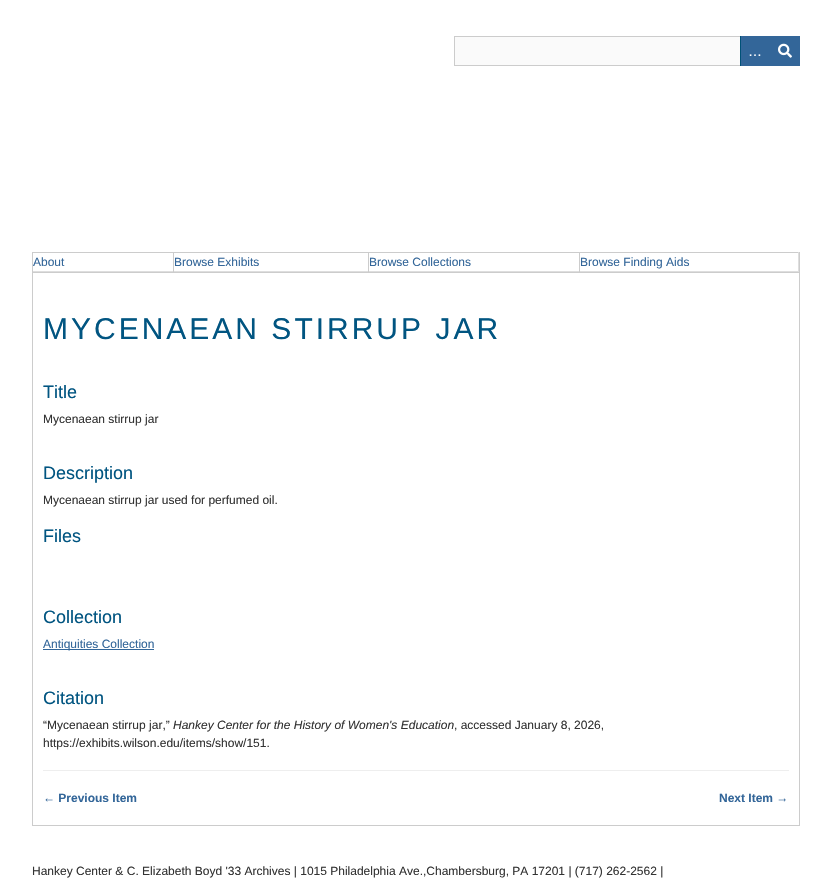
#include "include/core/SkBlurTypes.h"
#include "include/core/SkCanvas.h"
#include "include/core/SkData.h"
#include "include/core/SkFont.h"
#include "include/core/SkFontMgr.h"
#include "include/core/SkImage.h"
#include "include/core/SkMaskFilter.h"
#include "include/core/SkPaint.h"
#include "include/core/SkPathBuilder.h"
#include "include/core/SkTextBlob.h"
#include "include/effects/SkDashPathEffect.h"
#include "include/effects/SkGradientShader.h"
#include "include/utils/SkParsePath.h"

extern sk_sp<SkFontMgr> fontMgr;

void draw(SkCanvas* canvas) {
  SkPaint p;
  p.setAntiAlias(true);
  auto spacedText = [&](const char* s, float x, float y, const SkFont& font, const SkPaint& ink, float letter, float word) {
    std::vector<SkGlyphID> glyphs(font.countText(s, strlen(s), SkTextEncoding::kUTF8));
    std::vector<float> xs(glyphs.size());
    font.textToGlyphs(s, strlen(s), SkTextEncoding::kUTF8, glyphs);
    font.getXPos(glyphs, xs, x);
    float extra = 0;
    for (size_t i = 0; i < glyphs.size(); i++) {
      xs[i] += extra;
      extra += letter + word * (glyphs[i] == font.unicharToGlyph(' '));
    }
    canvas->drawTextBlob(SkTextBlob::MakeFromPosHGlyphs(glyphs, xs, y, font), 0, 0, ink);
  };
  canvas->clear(SK_ColorWHITE);
  p.setColor(SkColorSetRGB(250, 250, 250));
  canvas->drawRect(SkRect::MakeLTRB(455, 37, 740, 65), p);
  p.setStyle(SkPaint::kStroke_Style);
  p.setStrokeWidth(1);
  p.setColor(SkColorSetRGB(204, 204, 204));
  canvas->drawRect(SkRect::MakeLTRB(454.5f, 36.5f, 799.5f, 65.5f), p);
  p.setStyle(SkPaint::kFill_Style);
  p.setColor(SkColorSetRGB(0, 81, 119));
  canvas->drawRect(SkRect::MakeLTRB(740, 36, 741, 66), p);
  p.setColor(SkColorSetRGB(51, 102, 153));
  canvas->drawRect(SkRect::MakeLTRB(741, 36, 800, 66), p);
  canvas->drawImageRect(SkImages::DeferredFromEncodedData(SkData::MakeFromFileName("images/1.png")), SkRect::MakeLTRB(778, 43, 792, 58), SkSamplingOptions());
  p.setColor(SkColorSetRGB(204, 204, 204));
  canvas->drawRect(SkRect::MakeLTRB(799, 252, 800, 272), p);
  canvas->drawRect(SkRect::MakeLTRB(32, 252, 799, 253), p);
  p.setColor(SkColorSetRGB(222, 222, 222));
  canvas->drawRect(SkRect::MakeLTRB(32, 271, 580, 272), p);
  p.setColor(SkColorSetRGB(204, 204, 204));
  canvas->drawRect(SkRect::MakeLTRB(32, 252, 33, 272), p);
  canvas->drawRect(SkRect::MakeLTRB(173, 252, 174, 272), p);
  canvas->drawRect(SkRect::MakeLTRB(368, 252, 369, 272), p);
  p.setColor(SkColorSetRGB(222, 222, 222));
  canvas->drawRect(SkRect::MakeLTRB(798, 252, 799, 272), p);
  canvas->drawRect(SkRect::MakeLTRB(579, 271, 799, 272), p);
  p.setColor(SkColorSetRGB(204, 204, 204));
  canvas->drawRect(SkRect::MakeLTRB(579, 252, 580, 272), p);
  p.setStyle(SkPaint::kStroke_Style);
  canvas->drawRect(SkRect::MakeLTRB(32.5f, 272.5f, 799.5f, 825.5f), p);
  p.setStyle(SkPaint::kFill_Style);
  p.setColor(SkColorSetRGB(51, 102, 153));
  canvas->drawRect(SkRect::MakeLTRB(43, 649, 154, 650), p);
  p.setColor(SkColorSetRGB(238, 238, 238));
  canvas->drawRect(SkRect::MakeLTRB(43, 770, 789, 771), p);
  SkFont font1(fontMgr->matchFamilyStyle("Liberation Sans", SkFontStyle::Normal()), 14);
  font1.setSubpixel(true);
  p.setColor(SK_ColorWHITE);
  canvas->drawString("…", 748, 56, font1, p);
  SkFont font2(fontMgr->matchFamilyStyle("Liberation Sans", SkFontStyle::Normal()), 12);
  font2.setSubpixel(true);
  p.setColor(SkColorSetRGB(51, 102, 153));
  canvas->drawString("About", 33, 266, font2, p);
  canvas->drawString("Browse Exhibits", 174, 266, font2, p);
  canvas->drawString("Browse Collections", 369, 266, font2, p);
  canvas->drawString("Browse Finding Aids", 580, 266, font2, p);
  SkFont font3(fontMgr->matchFamilyStyle("Liberation Sans", SkFontStyle::Normal()), 30);
  font3.setSubpixel(true);
  p.setColor(SkColorSetRGB(1, 85, 129));
  spacedText("MYCENAEAN STIRRUP JAR", 43, 339, font3, p, 3, 0);
  SkFont font4(fontMgr->matchFamilyStyle("Liberation Sans", SkFontStyle::Normal()), 18);
  font4.setSubpixel(true);
  canvas->drawString("Title", 43, 398, font4, p);
  p.setColor(SkColorSetRGB(51, 51, 51));
  canvas->drawString("Mycenaean stirrup jar", 43, 423, font2, p);
  p.setColor(SkColorSetRGB(1, 85, 129));
  canvas->drawString("Description", 43, 479, font4, p);
  p.setColor(SkColorSetRGB(51, 51, 51));
  canvas->drawString("Mycenaean stirrup jar used for perfumed oil.", 43, 504, font2, p);
  p.setColor(SkColorSetRGB(1, 85, 129));
  canvas->drawString("Files", 43, 542, font4, p);
  canvas->drawString("Collection", 43, 623, font4, p);
  p.setColor(SkColorSetRGB(51, 102, 153));
  canvas->drawString("Antiquities Collection", 43, 648, font2, p);
  p.setColor(SkColorSetRGB(1, 85, 129));
  canvas->drawString("Citation", 43, 704, font4, p);
  p.setColor(SkColorSetRGB(51, 51, 51));
  canvas->drawString("“Mycenaean stirrup jar,”", 43, 729, font2, p);
  SkFont font5(fontMgr->matchFamilyStyle("Liberation Sans", SkFontStyle::Italic()), 12);
  font5.setSubpixel(true);
  canvas->drawString("Hankey Center for the History of Women's Education", 173, 729, font5, p);
  canvas->drawString(", accessed January 8, 2026,", 454, 729, font2, p);
  canvas->drawString("https://exhibits.wilson.edu/items/show/151.", 43, 747, font2, p);
  SkFont font6(fontMgr->matchFamilyStyle("Liberation Sans", SkFontStyle::Bold()), 12);
  font6.setSubpixel(true);
  p.setColor(SkColorSetRGB(51, 102, 153));
  canvas->drawString("← Previous Item", 43, 802, font6, p);
  canvas->drawString("Next Item →", 719, 802, font6, p);
  p.setColor(SkColorSetRGB(51, 51, 51));
  canvas->drawString("Hankey Center & C. Elizabeth Boyd '33 Archives | 1015 Philadelphia Ave.,Chambersburg, PA 17201 | (717) 262-2562 |", 32, 875, font2, p);
}
